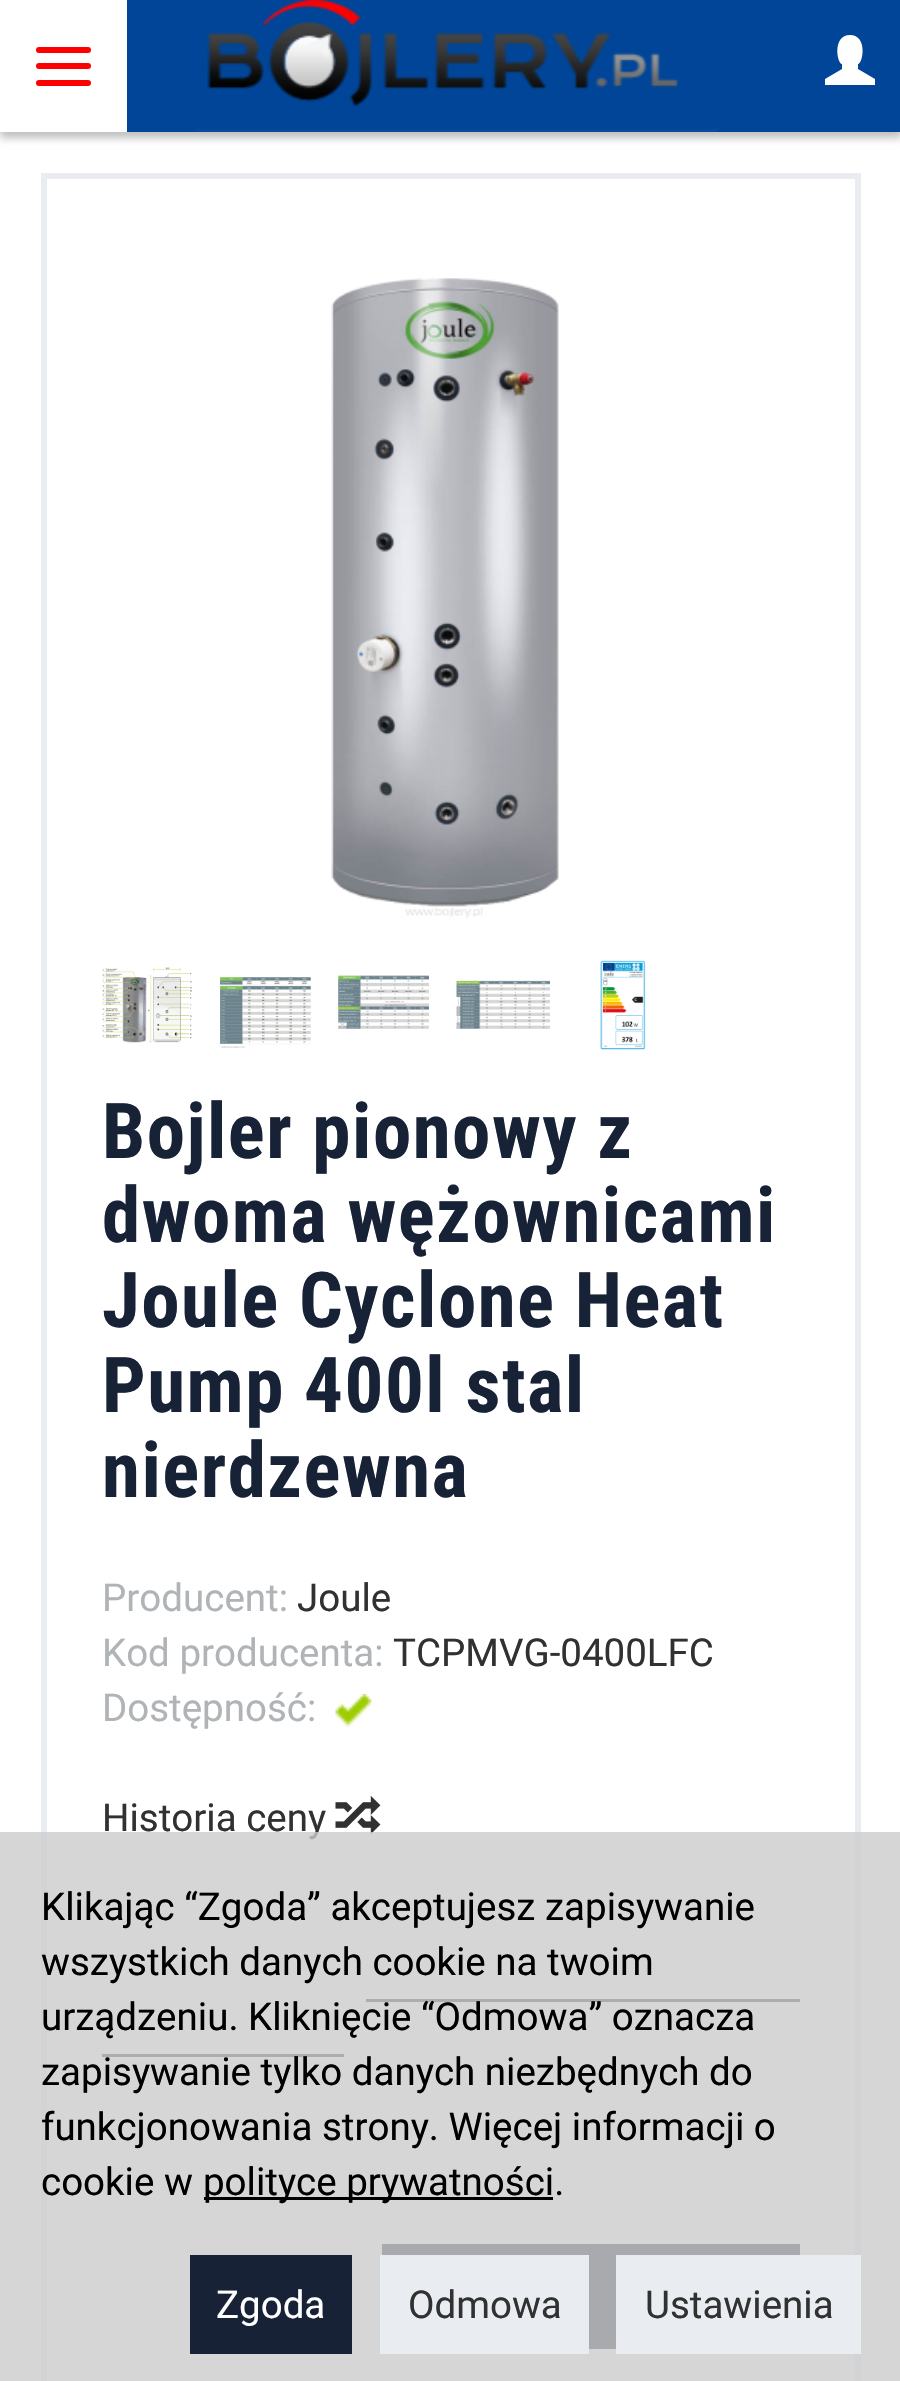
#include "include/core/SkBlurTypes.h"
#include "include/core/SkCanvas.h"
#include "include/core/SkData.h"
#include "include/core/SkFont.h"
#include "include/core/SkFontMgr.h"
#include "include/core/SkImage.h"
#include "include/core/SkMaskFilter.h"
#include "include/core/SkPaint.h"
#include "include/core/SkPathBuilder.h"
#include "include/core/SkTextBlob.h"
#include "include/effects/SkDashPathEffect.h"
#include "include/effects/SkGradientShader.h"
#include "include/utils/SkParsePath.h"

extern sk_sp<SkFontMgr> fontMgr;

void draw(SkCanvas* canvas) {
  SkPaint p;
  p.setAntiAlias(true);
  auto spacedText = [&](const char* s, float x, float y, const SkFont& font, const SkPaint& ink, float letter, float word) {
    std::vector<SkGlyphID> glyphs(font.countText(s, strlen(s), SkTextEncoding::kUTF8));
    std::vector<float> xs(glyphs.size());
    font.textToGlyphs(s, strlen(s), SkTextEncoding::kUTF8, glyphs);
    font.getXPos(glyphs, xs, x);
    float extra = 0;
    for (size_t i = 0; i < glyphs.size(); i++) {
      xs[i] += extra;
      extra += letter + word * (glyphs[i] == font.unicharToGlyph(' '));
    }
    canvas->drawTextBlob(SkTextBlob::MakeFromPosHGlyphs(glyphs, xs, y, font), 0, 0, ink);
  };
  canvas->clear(SK_ColorWHITE);
  p.setColor(SkColorSetARGB(64, 0, 0, 0));
  p.setMaskFilter(SkMaskFilter::MakeBlur(kNormal_SkBlurStyle, 4));
  canvas->drawRect(SkRect::MakeLTRB(0, 6, 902, 138), p);
  p.setMaskFilter(nullptr);
  p.setColor(SkColorSetRGB(0, 69, 151));
  canvas->drawRect(SkRect::MakeLTRB(127, 0, 900, 132), p);
  p.setColor(SK_ColorWHITE);
  canvas->drawRect(SkRect::MakeLTRB(0, 0, 127, 132), p);
  p.setColor(SkColorSetRGB(255, 0, 0));
  canvas->drawRoundRect(SkRect::MakeLTRB(36, 47, 91, 53), 3, 3, p);
  canvas->drawRoundRect(SkRect::MakeLTRB(36, 63, 91, 69), 3, 3, p);
  canvas->drawRoundRect(SkRect::MakeLTRB(36, 80, 91, 86), 3, 3, p);
  canvas->drawImageRect(SkImages::DeferredFromEncodedData(SkData::MakeFromFileName("images/1.png")), SkRect::MakeLTRB(193, 0, 718, 132), SkSamplingOptions());
  p.setColor(SK_ColorWHITE);
  canvas->drawPath(SkPathBuilder().moveTo(825, 85).lineTo(825, 79).lineTo(842, 69).lineTo(842, 64).cubicTo(837, 64, 832, 35, 850, 35).cubicTo(868, 35, 863, 64, 858, 64).lineTo(858, 69).lineTo(875, 79).lineTo(875, 85).close().detach(), p);
  p.setStyle(SkPaint::kStroke_Style);
  p.setStrokeWidth(6);
  p.setColor(SkColorSetRGB(233, 237, 241));
  canvas->drawRect(SkRect::MakeLTRB(44, 176, 858, 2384), p);
  canvas->drawImageRect(SkImages::DeferredFromEncodedData(SkData::MakeFromFileName("images/2.png")), SkRect::MakeLTRB(331, 278, 559, 919), SkSamplingOptions());
  canvas->drawImageRect(SkImages::DeferredFromEncodedData(SkData::MakeFromFileName("images/3.png")), SkRect::MakeLTRB(102, 967, 192, 1043), SkSamplingOptions());
  canvas->drawImageRect(SkImages::DeferredFromEncodedData(SkData::MakeFromFileName("images/4.png")), SkRect::MakeLTRB(220, 977, 311, 1048), SkSamplingOptions());
  canvas->drawImageRect(SkImages::DeferredFromEncodedData(SkData::MakeFromFileName("images/5.png")), SkRect::MakeLTRB(338, 975, 429, 1029), SkSamplingOptions());
  canvas->drawImageRect(SkImages::DeferredFromEncodedData(SkData::MakeFromFileName("images/6.png")), SkRect::MakeLTRB(456, 980, 550, 1029), SkSamplingOptions());
  canvas->drawImageRect(SkImages::DeferredFromEncodedData(SkData::MakeFromFileName("images/7.png")), SkRect::MakeLTRB(600, 960, 646, 1050), SkSamplingOptions());
  canvas->drawImageRect(SkImages::DeferredFromEncodedData(SkData::MakeFromFileName("images/8.png")), SkRect::MakeLTRB(335, 1694, 372, 1727), SkSamplingOptions());
  canvas->drawImageRect(SkImages::DeferredFromEncodedData(SkData::MakeFromFileName("images/9.png")), SkRect::MakeLTRB(335, 1796, 381, 1834), SkSamplingOptions());
  p.setStyle(SkPaint::kFill_Style);
  p.setColor(SkColorSetRGB(49, 49, 49));
  canvas->drawRect(SkRect::MakeLTRB(366, 1999, 800, 2002), p);
  canvas->drawRect(SkRect::MakeLTRB(102, 2054, 344, 2057), p);
  p.setColor(SkColorSetRGB(23, 34, 54));
  canvas->drawRect(SkRect::MakeLTRB(382, 2244, 800, 2349), p);
  SkFont font1(fontMgr->matchFamilyStyle("Roboto Condensed", SkFontStyle::Bold()), 77);
  font1.setSubpixel(true);
  spacedText("Bojler pionowy z", 102, 1158, font1, p, 1.5f, 0);
  spacedText("dwoma wężownicami", 102, 1242, font1, p, 1.5f, 0);
  spacedText("Joule Cyclone Heat", 102, 1327, font1, p, 1.5f, 0);
  spacedText("Pump 400l stal", 102, 1412, font1, p, 1.5f, 0);
  spacedText("nierdzewna", 102, 1497, font1, p, 1.5f, 0);
  SkFont font2(fontMgr->matchFamilyStyle("Roboto", SkFontStyle::Normal()), 38.5f);
  font2.setSubpixel(true);
  p.setColor(SkColorSetRGB(176, 180, 183));
  canvas->drawString("Producent:", 102, 1611, font2, p);
  p.setColor(SkColorSetRGB(49, 49, 49));
  canvas->drawString("Joule", 297, 1611, font2, p);
  p.setColor(SkColorSetRGB(176, 180, 183));
  canvas->drawString("Kod producenta:", 102, 1666, font2, p);
  p.setColor(SkColorSetRGB(49, 49, 49));
  canvas->drawString("TCPMVG-0400LFC", 393, 1666, font2, p);
  p.setColor(SkColorSetRGB(176, 180, 183));
  canvas->drawString("Dostępność:", 102, 1721, font2, p);
  p.setColor(SkColorSetRGB(49, 49, 49));
  canvas->drawString("Historia ceny", 102, 1831, font2, p);
  p.setColor(SkColorSetARGB(204, 204, 204, 204));
  canvas->drawRect(SkRect::MakeLTRB(0, 1832, 900, 2381), p);
  p.setColor(SK_ColorBLACK);
  canvas->drawString("Klikając “Zgoda” akceptujesz zapisywanie", 41, 1920, font2, p);
  canvas->drawString("wszystkich danych cookie na twoim", 41, 1975, font2, p);
  canvas->drawString("urządzeniu. Kliknięcie “Odmowa” oznacza", 41, 2030, font2, p);
  canvas->drawString("zapisywanie tylko danych niezbędnych do", 41, 2085, font2, p);
  canvas->drawString("funkcjonowania strony. Więcej informacji o", 41, 2140, font2, p);
  canvas->drawString("cookie w", 41, 2195, font2, p);
  canvas->drawRect(SkRect::MakeLTRB(204, 2197, 553, 2200), p);
  canvas->drawString("polityce prywatności.", 203, 2195, font2, p);
  p.setColor(SkColorSetRGB(23, 34, 54));
  canvas->drawRect(SkRect::MakeLTRB(190, 2255, 352, 2354), p);
  p.setColor(SK_ColorWHITE);
  canvas->drawString("Zgoda", 216, 2318, font2, p);
  p.setColor(SkColorSetRGB(233, 237, 241));
  canvas->drawRect(SkRect::MakeLTRB(380, 2255, 589, 2354), p);
  p.setColor(SkColorSetRGB(49, 49, 49));
  canvas->drawString("Odmowa", 408, 2318, font2, p);
  p.setColor(SkColorSetRGB(233, 237, 241));
  canvas->drawRect(SkRect::MakeLTRB(616, 2255, 861, 2354), p);
  p.setColor(SkColorSetRGB(49, 49, 49));
  canvas->drawString("Ustawienia", 645, 2318, font2, p);
}
